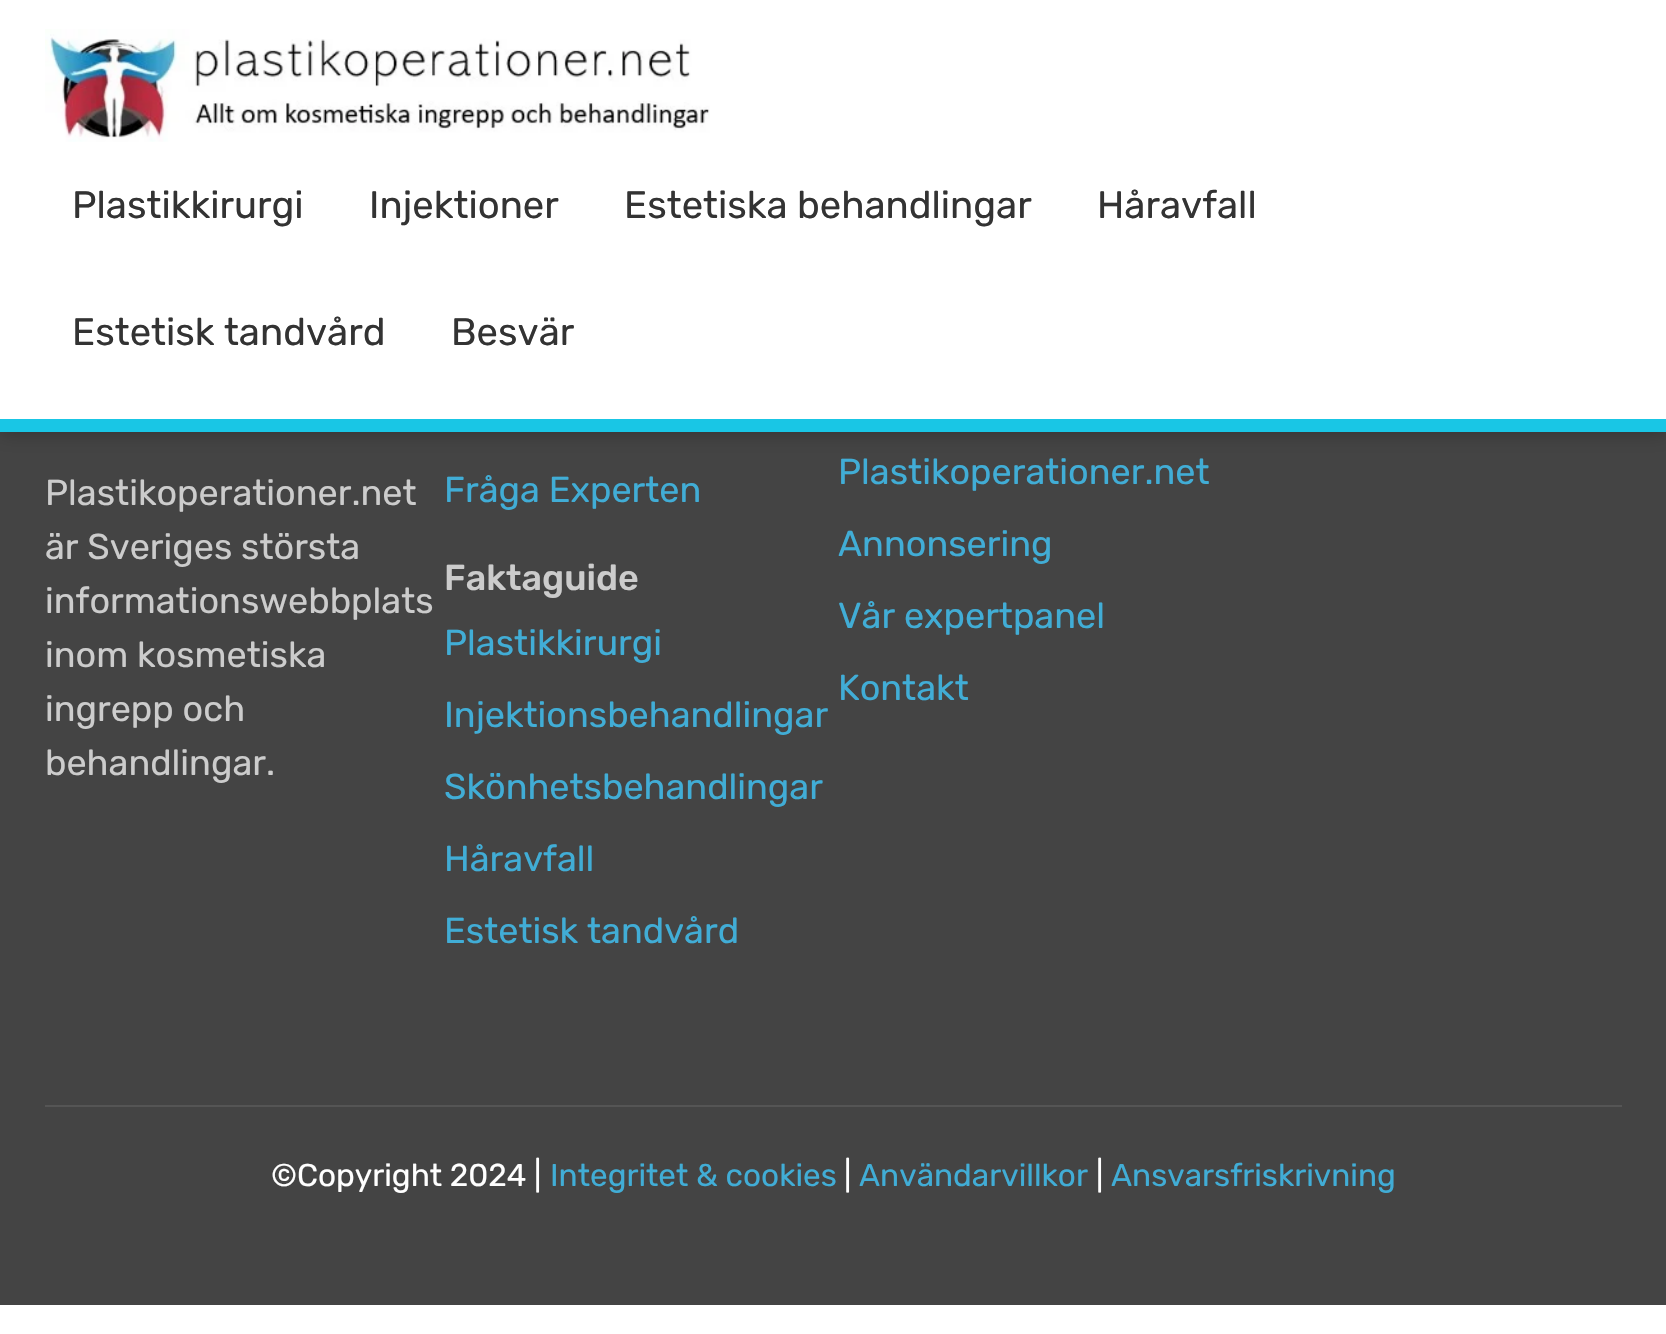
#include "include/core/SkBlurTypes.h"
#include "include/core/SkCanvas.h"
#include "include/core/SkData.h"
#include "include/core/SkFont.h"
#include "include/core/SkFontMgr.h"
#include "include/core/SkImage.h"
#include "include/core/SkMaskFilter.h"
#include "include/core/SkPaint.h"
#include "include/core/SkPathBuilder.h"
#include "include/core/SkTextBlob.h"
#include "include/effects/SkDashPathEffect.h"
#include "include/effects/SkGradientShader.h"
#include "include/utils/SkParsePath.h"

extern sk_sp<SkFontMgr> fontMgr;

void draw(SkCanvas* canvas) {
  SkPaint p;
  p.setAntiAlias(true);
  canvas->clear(SK_ColorWHITE);
  p.setColor(SkColorSetRGB(68, 68, 68));
  canvas->drawRect(SkRect::MakeLTRB(0, 432, 1666, 1305), p);
  p.setColor(SkColorSetARGB(64, 0, 0, 0));
  p.setMaskFilter(SkMaskFilter::MakeBlur(kNormal_SkBlurStyle, 9));
  canvas->drawRect(SkRect::MakeLTRB(0, 2, 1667, 434), p);
  p.setMaskFilter(nullptr);
  p.setColor(SK_ColorWHITE);
  canvas->drawRect(SkRect::MakeLTRB(0, 0, 1666, 419), p);
  p.setColor(SkColorSetRGB(25, 198, 229));
  canvas->drawRect(SkRect::MakeLTRB(0, 419, 1666, 432), p);
  canvas->drawImageRect(SkImages::DeferredFromEncodedData(SkData::MakeFromFileName("images/1.png")), SkRect::MakeLTRB(45, 29, 710, 142), SkSamplingOptions());
  p.setColor(SkColorSetRGB(85, 85, 85));
  canvas->drawRect(SkRect::MakeLTRB(45, 1105, 1622, 1107), p);
  SkFont font1(fontMgr->matchFamilyStyle("Rubik", SkFontStyle::Normal()), 38.25f);
  font1.setSubpixel(true);
  p.setColor(SkColorSetRGB(51, 51, 51));
  canvas->drawString("Plastikkirurgi", 72, 218, font1, p);
  canvas->drawString("Injektioner", 369, 218, font1, p);
  canvas->drawString("Estetiska behandlingar", 624, 218, font1, p);
  canvas->drawString("Håravfall", 1097, 218, font1, p);
  canvas->drawString("Estetisk tandvård", 72, 345, font1, p);
  canvas->drawString("Besvär", 451, 345, font1, p);
  SkFont font2(fontMgr->matchFamilyStyle("Rubik", SkFontStyle::Normal()), 36);
  font2.setSubpixel(true);
  p.setColor(SkColorSetRGB(204, 204, 204));
  canvas->drawString("Plastikoperationer.net", 45, 505, font2, p);
  canvas->drawString("är Sveriges största", 45, 559, font2, p);
  canvas->drawString("informationswebbplats", 45, 613, font2, p);
  canvas->drawString("inom kosmetiska", 45, 667, font2, p);
  canvas->drawString("ingrepp och", 45, 721, font2, p);
  canvas->drawString("behandlingar.", 45, 775, font2, p);
  p.setColor(SkColorSetRGB(65, 173, 214));
  canvas->drawString("Fråga Experten", 444, 502, font2, p);
  SkFont font3(fontMgr->matchFamilyStyle("Rubik", SkFontStyle(500, SkFontStyle::kNormal_Width, SkFontStyle::kUpright_Slant)), 36);
  font3.setSubpixel(true);
  p.setColor(SkColorSetRGB(204, 204, 204));
  canvas->drawString("Faktaguide", 444, 590, font3, p);
  p.setColor(SkColorSetRGB(65, 173, 214));
  canvas->drawString("Plastikkirurgi", 444, 655, font2, p);
  canvas->drawString("Injektionsbehandlingar", 444, 727, font2, p);
  canvas->drawString("Skönhetsbehandlingar", 444, 799, font2, p);
  canvas->drawString("Håravfall", 444, 871, font2, p);
  canvas->drawString("Estetisk tandvård", 444, 943, font2, p);
  canvas->drawString("Plastikoperationer.net", 838, 484, font2, p);
  canvas->drawString("Annonsering", 838, 556, font2, p);
  canvas->drawString("Vår expertpanel", 838, 628, font2, p);
  canvas->drawString("Kontakt", 838, 700, font2, p);
  SkFont font4(fontMgr->matchFamilyStyle("Rubik", SkFontStyle::Normal()), 31.5f);
  font4.setSubpixel(true);
  p.setColor(SK_ColorWHITE);
  canvas->drawString("©Copyright 2024 |", 271, 1186, font4, p);
  p.setColor(SkColorSetRGB(65, 173, 214));
  canvas->drawString("Integritet & cookies", 550, 1186, font4, p);
  p.setColor(SK_ColorWHITE);
  canvas->drawString("|", 844, 1186, font4, p);
  p.setColor(SkColorSetRGB(65, 173, 214));
  canvas->drawString("Användarvillkor", 859, 1186, font4, p);
  p.setColor(SK_ColorWHITE);
  canvas->drawString("|", 1096, 1186, font4, p);
  p.setColor(SkColorSetRGB(65, 173, 214));
  canvas->drawString("Ansvarsfriskrivning", 1111, 1186, font4, p);
}
